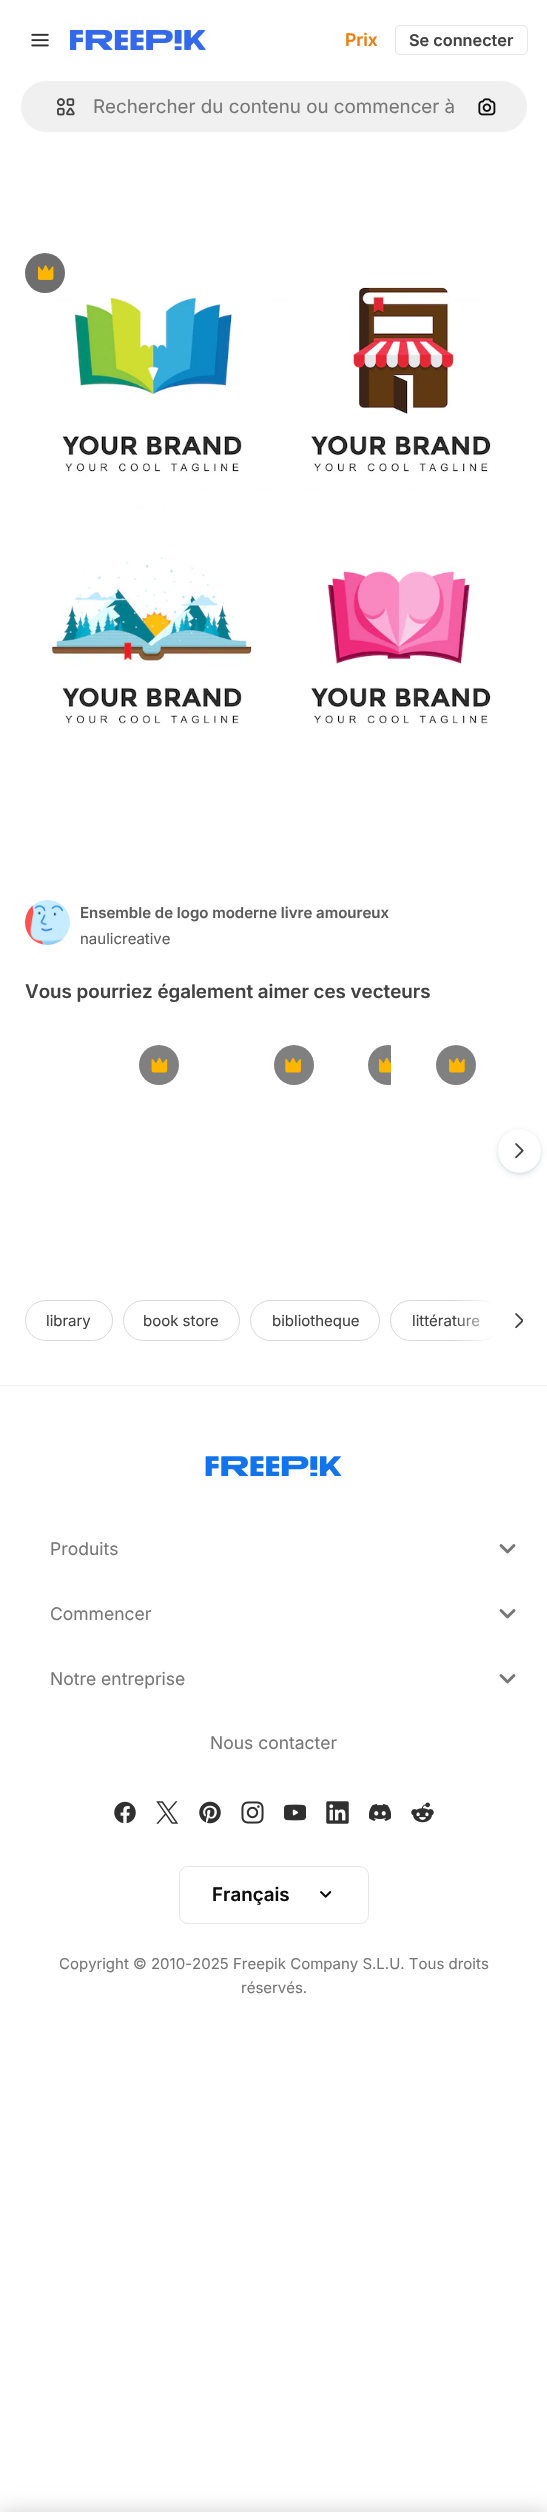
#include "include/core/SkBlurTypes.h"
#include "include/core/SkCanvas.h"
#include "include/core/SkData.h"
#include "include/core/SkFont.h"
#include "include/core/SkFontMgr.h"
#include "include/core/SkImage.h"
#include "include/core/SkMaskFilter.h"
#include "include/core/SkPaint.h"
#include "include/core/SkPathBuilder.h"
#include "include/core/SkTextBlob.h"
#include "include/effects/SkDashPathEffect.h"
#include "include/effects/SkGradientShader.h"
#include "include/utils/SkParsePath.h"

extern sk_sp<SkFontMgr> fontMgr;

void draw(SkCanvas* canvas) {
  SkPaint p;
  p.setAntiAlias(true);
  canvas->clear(SK_ColorWHITE);
  canvas->drawImageRect(SkImages::DeferredFromEncodedData(SkData::MakeFromFileName("images/1.png")), SkRect::MakeLTRB(31, 33, 49, 47), SkSamplingOptions());
  canvas->drawImageRect(SkImages::DeferredFromEncodedData(SkData::MakeFromFileName("images/2.png")), SkRect::MakeLTRB(70, 30, 206, 50), SkSamplingOptions());
  p.setStyle(SkPaint::kStroke_Style);
  p.setStrokeWidth(1);
  p.setColor(SkColorSetRGB(231, 231, 231));
  canvas->drawRoundRect(SkRect::MakeLTRB(395.5f, 25.5f, 527.5f, 54.5f), 4.5f, 4.5f, p);
  p.setStyle(SkPaint::kFill_Style);
  p.setColor(SkColorSetRGB(240, 240, 240));
  canvas->drawRoundRect(SkRect::MakeLTRB(20.5f, 80.5f, 527.5f, 132.5f), 26, 26, p);
  p.setStyle(SkPaint::kStroke_Style);
  p.setColor(SK_ColorWHITE);
  canvas->drawRoundRect(SkRect::MakeLTRB(20.5f, 80.5f, 527.5f, 132.5f), 26, 26, p);
  canvas->drawImageRect(SkImages::DeferredFromEncodedData(SkData::MakeFromFileName("images/3.png")), SkRect::MakeLTRB(56, 98, 75, 116), SkSamplingOptions());
  canvas->drawImageRect(SkImages::DeferredFromEncodedData(SkData::MakeFromFileName("images/4.png")), SkRect::MakeLTRB(478, 98, 496, 116), SkSamplingOptions());
  canvas->drawImageRect(SkImages::DeferredFromEncodedData(SkData::MakeFromFileName("images/6.png")), SkRect::MakeLTRB(47, 287, 491, 725), SkSamplingOptions());
  p.setStyle(SkPaint::kFill_Style);
  p.setColor(SkColorSetRGB(110, 110, 110));
  canvas->drawCircle(45, 273, 20, p);
  canvas->drawImageRect(SkImages::DeferredFromEncodedData(SkData::MakeFromFileName("images/5.png")), SkRect::MakeLTRB(38, 265, 54, 280), SkSamplingOptions());
  canvas->drawImageRect(SkImages::DeferredFromEncodedData(SkData::MakeFromFileName("images/7.png")), SkRect::MakeLTRB(25, 900, 70, 945), SkSamplingOptions());
  p.setColor(SkColorSetRGB(128, 128, 128));
  canvas->drawCircle(159, 1065, 20, p);
  canvas->drawImageRect(SkImages::DeferredFromEncodedData(SkData::MakeFromFileName("images/8.png")), SkRect::MakeLTRB(151, 1058, 168, 1073), SkSamplingOptions());
  canvas->drawCircle(294, 1065, 20, p);
  canvas->drawImageRect(SkImages::DeferredFromEncodedData(SkData::MakeFromFileName("images/9.png")), SkRect::MakeLTRB(285, 1058, 301, 1073), SkSamplingOptions());
  canvas->save();
  canvas->clipPath(SkPathBuilder().moveTo(368, 1025).lineTo(371, 1025).cubicTo(382, 1025, 391, 1034, 391, 1045).lineTo(391, 1255).cubicTo(391, 1266, 382, 1275, 371, 1275).lineTo(368, 1275).cubicTo(357, 1275, 348, 1266, 348, 1255).lineTo(348, 1045).cubicTo(348, 1034, 357, 1025, 368, 1025).close().detach(), true);
  canvas->drawCircle(388, 1065, 20, p);
  canvas->restore();
  canvas->drawImageRect(SkImages::DeferredFromEncodedData(SkData::MakeFromFileName("images/10.png")), SkRect::MakeLTRB(379, 1058, 391, 1073), SkSamplingOptions());
  canvas->drawCircle(456, 1065, 20, p);
  canvas->drawImageRect(SkImages::DeferredFromEncodedData(SkData::MakeFromFileName("images/11.png")), SkRect::MakeLTRB(449, 1058, 465, 1073), SkSamplingOptions());
  p.setColor(SkColorSetARGB(38, 55, 73, 87));
  p.setMaskFilter(SkMaskFilter::MakeBlur(kNormal_SkBlurStyle, 3));
  canvas->drawRoundRect(SkRect::MakeLTRB(498, 1131, 541, 1175), 21.5f, 21.5f, p);
  p.setMaskFilter(nullptr);
  p.setColor(SkColorSetARGB(26, 55, 73, 87));
  p.setMaskFilter(SkMaskFilter::MakeBlur(kNormal_SkBlurStyle, 1));
  canvas->drawRoundRect(SkRect::MakeLTRB(498, 1130, 541, 1174), 21.5f, 21.5f, p);
  p.setMaskFilter(nullptr);
  p.setColor(SK_ColorWHITE);
  canvas->drawRoundRect(SkRect::MakeLTRB(498, 1129, 541, 1173), 21.5f, 21.5f, p);
  canvas->drawImageRect(SkImages::DeferredFromEncodedData(SkData::MakeFromFileName("images/12.png")), SkRect::MakeLTRB(515, 1143, 524, 1159), SkSamplingOptions());
  p.setStyle(SkPaint::kStroke_Style);
  p.setColor(SkColorSetRGB(216, 216, 216));
  canvas->drawRoundRect(SkRect::MakeLTRB(25.5f, 1300.5f, 112.5f, 1340.5f), 20, 20, p);
  canvas->drawRoundRect(SkRect::MakeLTRB(123.5f, 1300.5f, 239.5f, 1340.5f), 20, 20, p);
  canvas->drawRoundRect(SkRect::MakeLTRB(250.5f, 1300.5f, 379.5f, 1340.5f), 20, 20, p);
  canvas->drawRoundRect(SkRect::MakeLTRB(390.5f, 1300.5f, 500.5f, 1340.5f), 20, 20, p);
  p.setStyle(SkPaint::kFill_Style);
  p.setColor(SK_ColorWHITE);
  canvas->drawRect(SkRect::MakeLTRB(498, 1310, 501, 1331), p);
  canvas->drawImageRect(SkImages::DeferredFromEncodedData(SkData::MakeFromFileName("images/13.png")), SkRect::MakeLTRB(515, 1313, 523, 1329), SkSamplingOptions());
  p.setColor(SkColorSetRGB(240, 240, 240));
  canvas->drawRect(SkRect::MakeLTRB(0, 1385, 547, 1386), p);
  canvas->drawImageRect(SkImages::DeferredFromEncodedData(SkData::MakeFromFileName("images/14.png")), SkRect::MakeLTRB(205, 1456, 342, 1476), SkSamplingOptions());
  canvas->drawImageRect(SkImages::DeferredFromEncodedData(SkData::MakeFromFileName("images/15.png")), SkRect::MakeLTRB(499, 1544, 516, 1554), SkSamplingOptions());
  canvas->drawImageRect(SkImages::DeferredFromEncodedData(SkData::MakeFromFileName("images/15.png")), SkRect::MakeLTRB(499, 1609, 516, 1619), SkSamplingOptions());
  canvas->drawImageRect(SkImages::DeferredFromEncodedData(SkData::MakeFromFileName("images/15.png")), SkRect::MakeLTRB(499, 1674, 516, 1684), SkSamplingOptions());
  canvas->drawImageRect(SkImages::DeferredFromEncodedData(SkData::MakeFromFileName("images/16.png")), SkRect::MakeLTRB(114, 1801, 136, 1824), SkSamplingOptions());
  canvas->drawImageRect(SkImages::DeferredFromEncodedData(SkData::MakeFromFileName("images/17.png")), SkRect::MakeLTRB(156, 1801, 179, 1824), SkSamplingOptions());
  canvas->drawImageRect(SkImages::DeferredFromEncodedData(SkData::MakeFromFileName("images/18.png")), SkRect::MakeLTRB(199, 1801, 221, 1824), SkSamplingOptions());
  canvas->drawImageRect(SkImages::DeferredFromEncodedData(SkData::MakeFromFileName("images/19.png")), SkRect::MakeLTRB(241, 1801, 264, 1824), SkSamplingOptions());
  canvas->drawImageRect(SkImages::DeferredFromEncodedData(SkData::MakeFromFileName("images/20.png")), SkRect::MakeLTRB(284, 1804, 306, 1821), SkSamplingOptions());
  canvas->drawImageRect(SkImages::DeferredFromEncodedData(SkData::MakeFromFileName("images/21.png")), SkRect::MakeLTRB(326, 1801, 349, 1824), SkSamplingOptions());
  canvas->drawImageRect(SkImages::DeferredFromEncodedData(SkData::MakeFromFileName("images/22.png")), SkRect::MakeLTRB(369, 1804, 391, 1821), SkSamplingOptions());
  canvas->drawImageRect(SkImages::DeferredFromEncodedData(SkData::MakeFromFileName("images/23.png")), SkRect::MakeLTRB(411, 1802, 434, 1823), SkSamplingOptions());
  p.setStyle(SkPaint::kStroke_Style);
  p.setColor(SkColorSetRGB(230, 230, 230));
  canvas->drawRoundRect(SkRect::MakeLTRB(179.5f, 1866.5f, 368.5f, 1923.5f), 8.5f, 8.5f, p);
  canvas->drawImageRect(SkImages::DeferredFromEncodedData(SkData::MakeFromFileName("images/24.png")), SkRect::MakeLTRB(320, 1891, 332, 1898), SkSamplingOptions());
  p.setStyle(SkPaint::kFill_Style);
  p.setColor(SkColorSetARGB(51, 0, 0, 0));
  p.setMaskFilter(SkMaskFilter::MakeBlur(kNormal_SkBlurStyle, 11));
  canvas->drawRect(SkRect::MakeLTRB(0, 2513, 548, 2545), p);
  p.setMaskFilter(nullptr);
  SkFont font1(fontMgr->matchFamilyStyle("Inter", SkFontStyle(600, SkFontStyle::kNormal_Width, SkFontStyle::kUpright_Slant)), 17.5f);
  font1.setSubpixel(true);
  p.setColor(SkColorSetRGB(234, 126, 17));
  canvas->drawString("Prix", 345, 46, font1, p);
  SkFont font2(fontMgr->matchFamilyStyle("Inter", SkFontStyle(600, SkFontStyle::kNormal_Width, SkFontStyle::kUpright_Slant)), 16.25f);
  font2.setSubpixel(true);
  p.setColor(SkColorSetRGB(66, 66, 66));
  canvas->drawString("Se connecter", 409, 46, font2, p);
  SkFont font3(fontMgr->matchFamilyStyle("Inter", SkFontStyle::Normal()), 18.75f);
  font3.setSubpixel(true);
  p.setColor(SkColorSetRGB(119, 119, 119));
  canvas->drawString("Rechercher du contenu ou commencer à", 93, 113, font3, p);
  SkFont font4(fontMgr->matchFamilyStyle("Inter", SkFontStyle(600, SkFontStyle::kNormal_Width, SkFontStyle::kUpright_Slant)), 15);
  font4.setSubpixel(true);
  p.setColor(SkColorSetRGB(92, 92, 92));
  canvas->drawString("Ensemble de logo moderne livre amoureux", 80, 918, font4, p);
  SkFont font5(fontMgr->matchFamilyStyle("Inter", SkFontStyle::Normal()), 15);
  font5.setSubpixel(true);
  canvas->drawString("naulicreative", 80, 944, font5, p);
  SkFont font6(fontMgr->matchFamilyStyle("Inter", SkFontStyle(600, SkFontStyle::kNormal_Width, SkFontStyle::kUpright_Slant)), 18.75f);
  font6.setSubpixel(true);
  p.setColor(SkColorSetRGB(66, 66, 66));
  canvas->drawString("Vous pourriez également aimer ces vecteurs", 25, 998, font6, p);
  canvas->drawString("library", 46, 1326, font5, p);
  canvas->drawString("book store", 143, 1326, font5, p);
  canvas->drawString("bibliotheque", 272, 1326, font5, p);
  canvas->drawString("littérature", 412, 1326, font5, p);
  {
    const SkColor colors[] = {SK_ColorWHITE, SkColorSetARGB(0, 255, 255, 255)};
    const float stops[] = {0, 1};
    const SkPoint ends[] = {{498, 1321}, {454, 1321}};
    p.setShader(SkGradientShader::MakeLinear(ends, colors, stops, 2, SkTileMode::kClamp));
    p.setAlpha(255);
  }
  canvas->drawRect(SkRect::MakeLTRB(455, 1300, 498, 1341), p);
  SkFont font7(fontMgr->matchFamilyStyle("Inter", SkFontStyle::Normal()), 17.5f);
  font7.setSubpixel(true);
  p.setShader(nullptr);
  p.setColor(SkColorSetRGB(119, 119, 119));
  canvas->drawString("Produits", 50, 1555, font7, p);
  canvas->drawString("Commencer", 50, 1620, font7, p);
  canvas->drawString("Notre entreprise", 50, 1685, font7, p);
  canvas->drawString("Nous contacter", 210, 1749, font7, p);
  p.setColor(SkColorSetRGB(13, 13, 13));
  canvas->drawString("Français", 212, 1901, font6, p);
  p.setColor(SkColorSetRGB(119, 119, 119));
  canvas->drawString("Copyright © 2010-2025 Freepik Company S.L.U. Tous droits", 59, 1969, font5, p);
  canvas->drawString("réservés.", 241, 1993, font5, p);
}
